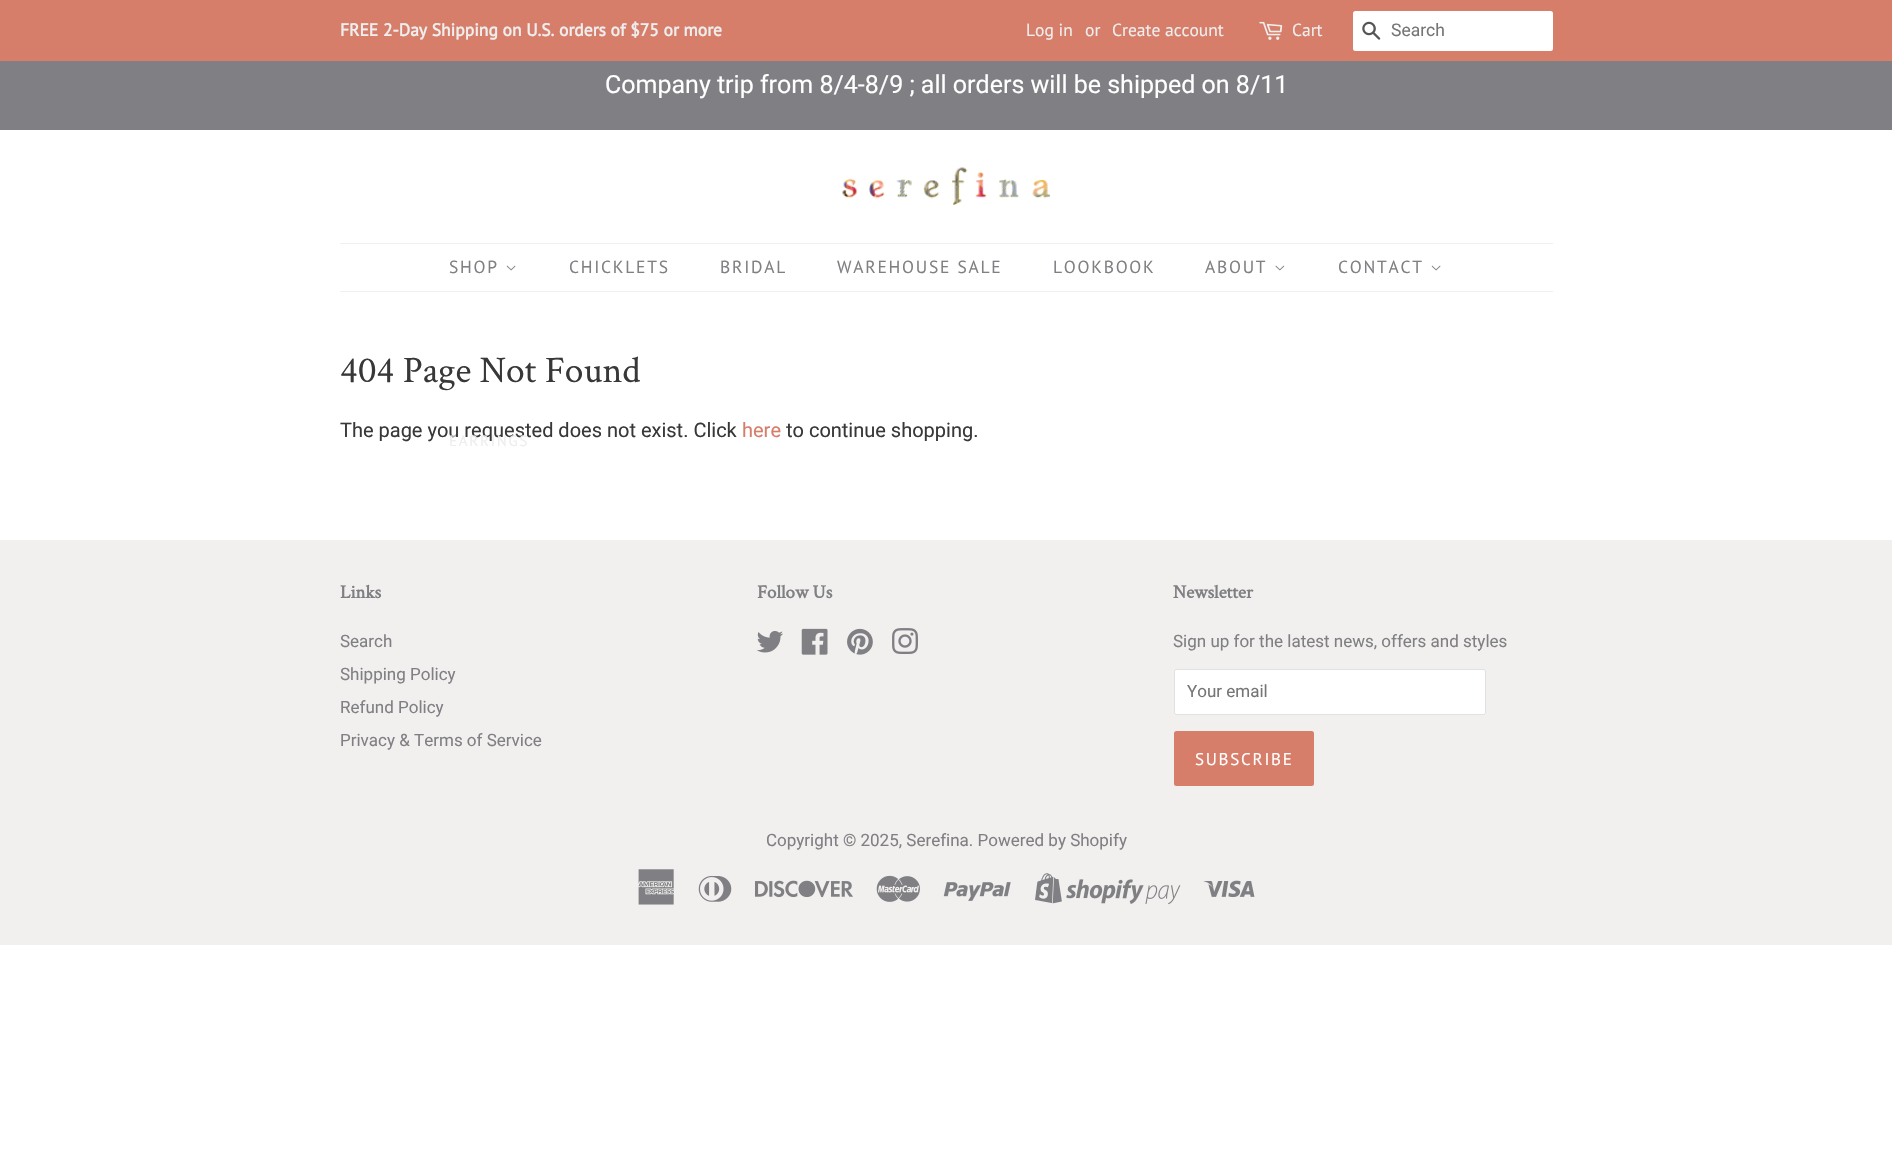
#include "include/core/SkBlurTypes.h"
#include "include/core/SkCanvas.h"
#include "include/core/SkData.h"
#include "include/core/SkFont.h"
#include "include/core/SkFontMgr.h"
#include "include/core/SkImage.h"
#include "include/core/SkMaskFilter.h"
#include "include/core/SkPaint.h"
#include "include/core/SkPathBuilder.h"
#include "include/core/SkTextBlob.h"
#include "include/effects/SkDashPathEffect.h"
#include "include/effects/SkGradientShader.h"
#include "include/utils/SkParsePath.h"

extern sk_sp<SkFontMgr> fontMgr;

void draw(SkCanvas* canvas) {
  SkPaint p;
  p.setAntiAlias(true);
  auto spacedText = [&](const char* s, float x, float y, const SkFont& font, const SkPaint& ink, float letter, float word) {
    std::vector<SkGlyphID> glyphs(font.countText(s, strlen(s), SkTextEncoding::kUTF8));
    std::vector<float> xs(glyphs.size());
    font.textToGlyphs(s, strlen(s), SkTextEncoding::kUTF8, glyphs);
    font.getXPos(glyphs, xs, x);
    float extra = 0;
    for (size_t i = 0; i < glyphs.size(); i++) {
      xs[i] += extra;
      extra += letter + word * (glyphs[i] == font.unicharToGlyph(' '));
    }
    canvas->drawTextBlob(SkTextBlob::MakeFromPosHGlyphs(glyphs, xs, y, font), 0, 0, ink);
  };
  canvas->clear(SK_ColorWHITE);
  p.setColor(SkColorSetRGB(215, 126, 106));
  canvas->drawRect(SkRect::MakeLTRB(0, 0, 1892, 61), p);
  canvas->drawImageRect(SkImages::DeferredFromEncodedData(SkData::MakeFromFileName("images/1.png")), SkRect::MakeLTRB(1259, 21, 1283, 40), SkSamplingOptions());
  p.setColor(SK_ColorWHITE);
  canvas->drawRoundRect(SkRect::MakeLTRB(1353, 11, 1553, 51), 2.5f, 2.5f, p);
  canvas->drawImageRect(SkImages::DeferredFromEncodedData(SkData::MakeFromFileName("images/2.png")), SkRect::MakeLTRB(1362, 21, 1381, 40), SkSamplingOptions());
  canvas->drawImageRect(SkImages::DeferredFromEncodedData(SkData::MakeFromFileName("images/3.png")), SkRect::MakeLTRB(842, 167, 1050, 205), SkSamplingOptions());
  p.setColor(SkColorSetRGB(242, 240, 238));
  canvas->drawRect(SkRect::MakeLTRB(340, 243, 1553, 244), p);
  canvas->drawRect(SkRect::MakeLTRB(340, 291, 1553, 292), p);
  canvas->drawImageRect(SkImages::DeferredFromEncodedData(SkData::MakeFromFileName("images/4.png")), SkRect::MakeLTRB(506, 265, 516, 271), SkSamplingOptions());
  canvas->drawImageRect(SkImages::DeferredFromEncodedData(SkData::MakeFromFileName("images/5.png")), SkRect::MakeLTRB(1275, 265, 1285, 271), SkSamplingOptions());
  canvas->drawImageRect(SkImages::DeferredFromEncodedData(SkData::MakeFromFileName("images/4.png")), SkRect::MakeLTRB(1431, 265, 1441, 271), SkSamplingOptions());
  p.setColor(SkColorSetRGB(128, 128, 132));
  canvas->drawRect(SkRect::MakeLTRB(0, 61, 1892, 130), p);
  p.setColor(SkColorSetRGB(242, 240, 238));
  canvas->drawRect(SkRect::MakeLTRB(0, 540, 1892, 945), p);
  canvas->drawImageRect(SkImages::DeferredFromEncodedData(SkData::MakeFromFileName("images/6.png")), SkRect::MakeLTRB(756, 631, 783, 653), SkSamplingOptions());
  canvas->drawImageRect(SkImages::DeferredFromEncodedData(SkData::MakeFromFileName("images/7.png")), SkRect::MakeLTRB(801, 628, 828, 655), SkSamplingOptions());
  canvas->drawImageRect(SkImages::DeferredFromEncodedData(SkData::MakeFromFileName("images/8.png")), SkRect::MakeLTRB(847, 628, 873, 655), SkSamplingOptions());
  canvas->drawImageRect(SkImages::DeferredFromEncodedData(SkData::MakeFromFileName("images/9.png")), SkRect::MakeLTRB(892, 628, 918, 654), SkSamplingOptions());
  p.setColor(SK_ColorWHITE);
  canvas->drawRoundRect(SkRect::MakeLTRB(1174, 669, 1486, 715), 2.5f, 2.5f, p);
  p.setStyle(SkPaint::kStroke_Style);
  p.setStrokeWidth(1);
  p.setColor(SkColorSetARGB(38, 56, 56, 56));
  canvas->drawRoundRect(SkRect::MakeLTRB(1174.5f, 669.5f, 1485.5f, 714.5f), 2, 2, p);
  p.setStyle(SkPaint::kFill_Style);
  p.setColor(SkColorSetRGB(215, 126, 106));
  canvas->drawRoundRect(SkRect::MakeLTRB(1174, 731, 1314, 786), 2.5f, 2.5f, p);
  canvas->drawImageRect(SkImages::DeferredFromEncodedData(SkData::MakeFromFileName("images/10.png")), SkRect::MakeLTRB(638, 869, 674, 905), SkSamplingOptions());
  canvas->drawImageRect(SkImages::DeferredFromEncodedData(SkData::MakeFromFileName("images/11.png")), SkRect::MakeLTRB(698, 876, 732, 902), SkSamplingOptions());
  canvas->drawImageRect(SkImages::DeferredFromEncodedData(SkData::MakeFromFileName("images/12.png")), SkRect::MakeLTRB(755, 880, 853, 898), SkSamplingOptions());
  canvas->drawImageRect(SkImages::DeferredFromEncodedData(SkData::MakeFromFileName("images/13.png")), SkRect::MakeLTRB(876, 875, 920, 902), SkSamplingOptions());
  canvas->drawImageRect(SkImages::DeferredFromEncodedData(SkData::MakeFromFileName("images/14.png")), SkRect::MakeLTRB(943, 882, 1011, 901), SkSamplingOptions());
  canvas->drawImageRect(SkImages::DeferredFromEncodedData(SkData::MakeFromFileName("images/15.png")), SkRect::MakeLTRB(1035, 873, 1181, 905), SkSamplingOptions());
  canvas->drawImageRect(SkImages::DeferredFromEncodedData(SkData::MakeFromFileName("images/16.png")), SkRect::MakeLTRB(1203, 880, 1255, 898), SkSamplingOptions());
  SkFont font1(fontMgr->matchFamilyStyle("PT Sans", SkFontStyle::Bold()), 17.5f);
  font1.setSubpixel(true);
  p.setColor(SkColorSetRGB(238, 238, 238));
  canvas->drawString("FREE 2-Day Shipping on U.S. orders of $75 or more", 340, 36, font1, p);
  SkFont font2(fontMgr->matchFamilyStyle("PT Sans", SkFontStyle::Normal()), 17.5f);
  font2.setSubpixel(true);
  canvas->drawString("Log in", 1026, 36, font2, p);
  canvas->drawString("or", 1085, 36, font2, p);
  canvas->drawString("Create account", 1112, 36, font2, p);
  canvas->drawString("Cart", 1292, 36, font2, p);
  SkFont font3(fontMgr->matchFamilyStyle("Roboto", SkFontStyle::Normal()), 17.5f);
  font3.setSubpixel(true);
  p.setColor(SkColorSetRGB(117, 117, 117));
  canvas->drawString("Search", 1391, 36, font3, p);
  p.setColor(SkColorSetRGB(128, 128, 132));
  spacedText("SHOP", 449, 273, font2, p, 1.75f, 0);
  spacedText("CHICKLETS", 569, 273, font2, p, 1.75f, 0);
  spacedText("BRIDAL", 720, 273, font2, p, 1.75f, 0);
  spacedText("WAREHOUSE SALE", 837, 273, font2, p, 1.75f, 0);
  spacedText("LOOKBOOK", 1053, 273, font2, p, 1.75f, 0);
  spacedText("ABOUT", 1205, 273, font2, p, 1.75f, 0);
  spacedText("CONTACT", 1338, 273, font2, p, 1.75f, 0);
  SkFont font4(fontMgr->matchFamilyStyle("Roboto", SkFontStyle::Normal()), 25);
  font4.setSubpixel(true);
  p.setColor(SK_ColorWHITE);
  canvas->drawString("Company trip from 8/4-8/9 ; all orders will be shipped on 8/11", 605, 93, font4, p);
  SkFont font5(fontMgr->matchFamilyStyle("Crimson Text", SkFontStyle::Normal()), 37.5f);
  font5.setSubpixel(true);
  p.setColor(SkColorSetRGB(56, 56, 56));
  canvas->drawString("404 Page Not Found", 340, 382, font5, p);
  SkFont font6(fontMgr->matchFamilyStyle("Roboto", SkFontStyle::Normal()), 20);
  font6.setSubpixel(true);
  canvas->drawString("The page you requested does not exist. Click", 340, 437, font6, p);
  SkFont font7(fontMgr->matchFamilyStyle("PT Sans", SkFontStyle::Normal()), 15);
  font7.setSubpixel(true);
  p.setColor(SkColorSetRGB(238, 238, 238));
  spacedText("EARRINGS", 449, 446, font7, p, 1.75f, 0);
  p.setColor(SkColorSetRGB(215, 126, 106));
  canvas->drawString("here", 742, 437, font6, p);
  p.setColor(SkColorSetRGB(56, 56, 56));
  canvas->drawString("to continue shopping.", 786, 437, font6, p);
  SkFont font8(fontMgr->matchFamilyStyle("Crimson Text", SkFontStyle::Bold()), 18.75f);
  font8.setSubpixel(true);
  p.setColor(SkColorSetRGB(128, 128, 132));
  canvas->drawString("Links", 340, 598, font8, p);
  SkFont font9(fontMgr->matchFamilyStyle("Roboto", SkFontStyle::Normal()), 17);
  font9.setSubpixel(true);
  canvas->drawString("Search", 340, 647, font9, p);
  canvas->drawString("Shipping Policy", 340, 680, font9, p);
  canvas->drawString("Refund Policy", 340, 713, font9, p);
  canvas->drawString("Privacy & Terms of Service", 340, 746, font9, p);
  canvas->drawString("Follow Us", 757, 598, font8, p);
  canvas->drawString("Newsletter", 1173, 598, font8, p);
  canvas->drawString("Sign up for the latest news, offers and styles", 1173, 647, font9, p);
  p.setColor(SkColorSetRGB(117, 117, 117));
  canvas->drawString("Your email", 1187, 697, font9, p);
  SkFont font10(fontMgr->matchFamilyStyle("PT Sans", SkFontStyle::Normal()), 17);
  font10.setSubpixel(true);
  p.setColor(SK_ColorWHITE);
  spacedText("SUBSCRIBE", 1195, 765, font10, p, 1.75f, 0);
  p.setColor(SkColorSetRGB(128, 128, 132));
  canvas->drawString("Copyright © 2025, Serefina. Powered by Shopify", 766, 846, font9, p);
}
